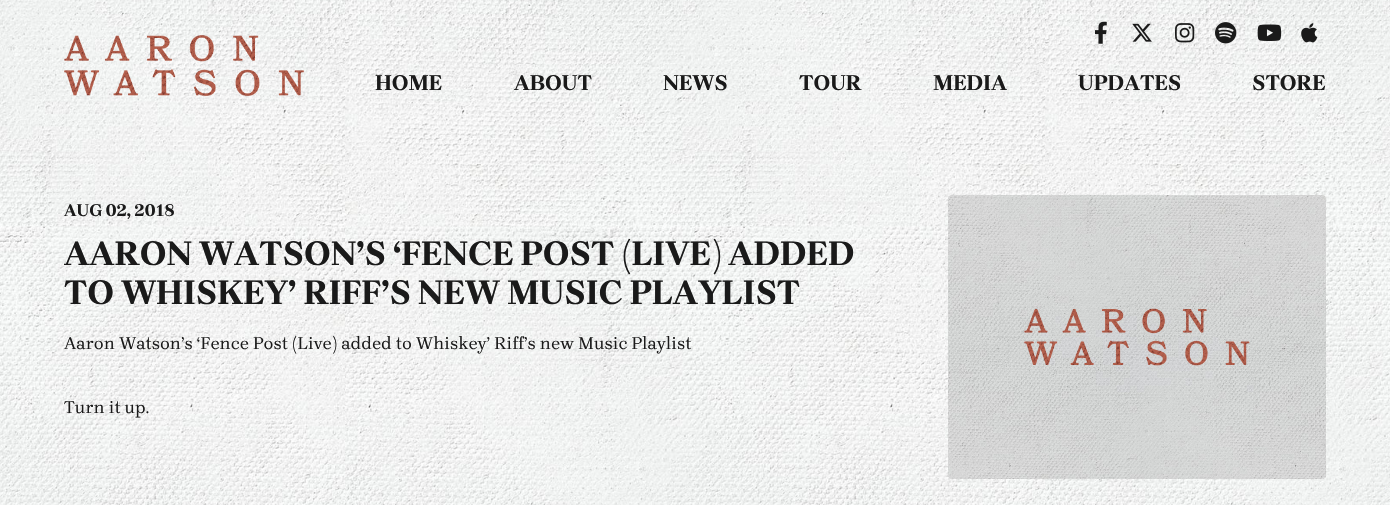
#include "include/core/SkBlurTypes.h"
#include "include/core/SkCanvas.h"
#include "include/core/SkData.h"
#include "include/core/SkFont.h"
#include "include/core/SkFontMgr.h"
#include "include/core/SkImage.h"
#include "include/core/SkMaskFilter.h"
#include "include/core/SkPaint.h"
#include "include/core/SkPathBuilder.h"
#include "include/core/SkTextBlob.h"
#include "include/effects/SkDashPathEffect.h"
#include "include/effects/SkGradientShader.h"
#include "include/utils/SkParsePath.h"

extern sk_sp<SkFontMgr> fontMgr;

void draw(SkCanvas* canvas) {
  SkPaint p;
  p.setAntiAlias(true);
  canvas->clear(SK_ColorWHITE);
  canvas->drawImageRect(SkImages::DeferredFromEncodedData(SkData::MakeFromFileName("images/1.png")), SkRect::MakeLTRB(0, 0, 1390, 505), SkSamplingOptions());
  canvas->drawImageRect(SkImages::DeferredFromEncodedData(SkData::MakeFromFileName("images/2.png")), SkRect::MakeLTRB(64, 35, 304, 96), SkSamplingOptions());
  canvas->drawImageRect(SkImages::DeferredFromEncodedData(SkData::MakeFromFileName("images/3.png")), SkRect::MakeLTRB(1095, 21, 1107, 44), SkSamplingOptions());
  canvas->drawImageRect(SkImages::DeferredFromEncodedData(SkData::MakeFromFileName("images/4.png")), SkRect::MakeLTRB(1132, 23, 1152, 42), SkSamplingOptions());
  canvas->drawImageRect(SkImages::DeferredFromEncodedData(SkData::MakeFromFileName("images/5.png")), SkRect::MakeLTRB(1175, 23, 1195, 43), SkSamplingOptions());
  canvas->drawImageRect(SkImages::DeferredFromEncodedData(SkData::MakeFromFileName("images/6.png")), SkRect::MakeLTRB(1215, 22, 1237, 44), SkSamplingOptions());
  canvas->drawImageRect(SkImages::DeferredFromEncodedData(SkData::MakeFromFileName("images/7.png")), SkRect::MakeLTRB(1257, 24, 1282, 41), SkSamplingOptions());
  canvas->drawImageRect(SkImages::DeferredFromEncodedData(SkData::MakeFromFileName("images/8.png")), SkRect::MakeLTRB(1301, 23, 1318, 43), SkSamplingOptions());
  canvas->drawImageRect(SkImages::DeferredFromEncodedData(SkData::MakeFromFileName("images/9.png")), SkRect::MakeLTRB(948, 195, 1326, 479), SkSamplingOptions());
  SkFont font1(fontMgr->matchFamilyStyle("Brygada 1918", SkFontStyle::Bold()), 22);
  font1.setSubpixel(true);
  p.setColor(SkColorSetRGB(26, 26, 26));
  canvas->drawString("HOME", 375, 90, font1, p);
  canvas->drawString("ABOUT", 514, 90, font1, p);
  canvas->drawString("NEWS", 663, 90, font1, p);
  canvas->drawString("TOUR", 799, 90, font1, p);
  canvas->drawString("MEDIA", 933, 90, font1, p);
  canvas->drawString("UPDATES", 1078, 90, font1, p);
  canvas->drawString("STORE", 1252, 90, font1, p);
  SkFont font2(fontMgr->matchFamilyStyle("Brygada 1918", SkFontStyle::Bold()), 17.6f);
  font2.setSubpixel(true);
  canvas->drawString("AUG 02, 2018", 64, 216, font2, p);
  SkFont font3(fontMgr->matchFamilyStyle("Brygada 1918", SkFontStyle::Bold()), 35.2f);
  font3.setSubpixel(true);
  canvas->drawString("AARON WATSON’S ‘FENCE POST (LIVE) ADDED", 64, 265, font3, p);
  canvas->drawString("TO WHISKEY’ RIFF’S NEW MUSIC PLAYLIST", 64, 304, font3, p);
  SkFont font4(fontMgr->matchFamilyStyle("Brygada 1918", SkFontStyle::Normal()), 17.6f);
  font4.setSubpixel(true);
  canvas->drawString("Aaron Watson’s ‘Fence Post (Live) added to Whiskey’ Riff’s new Music Playlist", 64, 349, font4, p);
  canvas->drawString("Turn it up.", 64, 413, font4, p);
}
